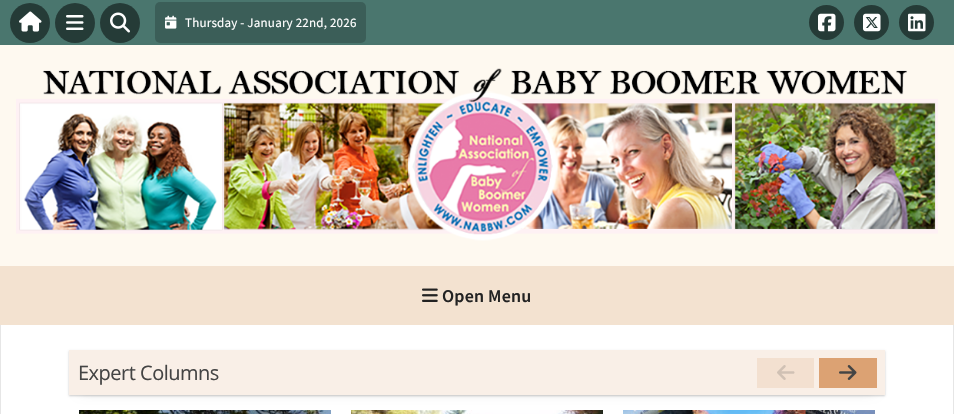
#include "include/core/SkBlurTypes.h"
#include "include/core/SkCanvas.h"
#include "include/core/SkData.h"
#include "include/core/SkFont.h"
#include "include/core/SkFontMgr.h"
#include "include/core/SkImage.h"
#include "include/core/SkMaskFilter.h"
#include "include/core/SkPaint.h"
#include "include/core/SkPathBuilder.h"
#include "include/core/SkTextBlob.h"
#include "include/effects/SkDashPathEffect.h"
#include "include/effects/SkGradientShader.h"
#include "include/utils/SkParsePath.h"

extern sk_sp<SkFontMgr> fontMgr;

void draw(SkCanvas* canvas) {
  SkPaint p;
  p.setAntiAlias(true);
  auto spacedText = [&](const char* s, float x, float y, const SkFont& font, const SkPaint& ink, float letter, float word) {
    std::vector<SkGlyphID> glyphs(font.countText(s, strlen(s), SkTextEncoding::kUTF8));
    std::vector<float> xs(glyphs.size());
    font.textToGlyphs(s, strlen(s), SkTextEncoding::kUTF8, glyphs);
    font.getXPos(glyphs, xs, x);
    float extra = 0;
    for (size_t i = 0; i < glyphs.size(); i++) {
      xs[i] += extra;
      extra += letter + word * (glyphs[i] == font.unicharToGlyph(' '));
    }
    canvas->drawTextBlob(SkTextBlob::MakeFromPosHGlyphs(glyphs, xs, y, font), 0, 0, ink);
  };
  canvas->clear(SkColorSetRGB(254, 249, 240));
  p.setColor(SkColorSetRGB(74, 118, 110));
  canvas->drawRect(SkRect::MakeLTRB(0, 0, 954, 45), p);
  p.setColor(SkColorSetRGB(37, 59, 55));
  canvas->drawCircle(30, 23, 20, p);
  canvas->drawImageRect(SkImages::DeferredFromEncodedData(SkData::MakeFromFileName("images/1.png")), SkRect::MakeLTRB(19, 11, 42, 32), SkSamplingOptions());
  canvas->drawCircle(75, 23, 20, p);
  canvas->drawImageRect(SkImages::DeferredFromEncodedData(SkData::MakeFromFileName("images/2.png")), SkRect::MakeLTRB(66, 15, 84, 30), SkSamplingOptions());
  canvas->drawCircle(120, 23, 20, p);
  canvas->drawImageRect(SkImages::DeferredFromEncodedData(SkData::MakeFromFileName("images/3.png")), SkRect::MakeLTRB(110, 12, 130, 33), SkSamplingOptions());
  p.setColor(SkColorSetRGB(59, 94, 88));
  canvas->drawRoundRect(SkRect::MakeLTRB(155, 2, 366, 43), 5, 5, p);
  canvas->drawImageRect(SkImages::DeferredFromEncodedData(SkData::MakeFromFileName("images/4.png")), SkRect::MakeLTRB(165, 15, 177, 29), SkSamplingOptions());
  p.setColor(SkColorSetRGB(37, 59, 55));
  canvas->drawCircle(826.5f, 22.5f, 17.5f, p);
  canvas->drawImageRect(SkImages::DeferredFromEncodedData(SkData::MakeFromFileName("images/5.png")), SkRect::MakeLTRB(818, 13, 836, 32), SkSamplingOptions());
  canvas->drawCircle(871.5f, 22.5f, 17.5f, p);
  canvas->drawImageRect(SkImages::DeferredFromEncodedData(SkData::MakeFromFileName("images/6.png")), SkRect::MakeLTRB(863, 13, 881, 32), SkSamplingOptions());
  canvas->drawCircle(916.5f, 22.5f, 17.5f, p);
  canvas->drawImageRect(SkImages::DeferredFromEncodedData(SkData::MakeFromFileName("images/7.png")), SkRect::MakeLTRB(908, 13, 926, 32), SkSamplingOptions());
  canvas->drawImageRect(SkImages::DeferredFromEncodedData(SkData::MakeFromFileName("images/8.png")), SkRect::MakeLTRB(16, 68, 938, 241), SkSamplingOptions());
  p.setColor(SkColorSetRGB(243, 226, 208));
  canvas->drawRect(SkRect::MakeLTRB(0, 266, 954, 325), p);
  canvas->drawImageRect(SkImages::DeferredFromEncodedData(SkData::MakeFromFileName("images/9.png")), SkRect::MakeLTRB(422, 288, 438, 302), SkSamplingOptions());
  p.setColor(SK_ColorWHITE);
  canvas->drawRect(SkRect::MakeLTRB(1, 325, 953, 414), p);
  p.setColor(SkColorSetRGB(230, 230, 230));
  canvas->drawRect(SkRect::MakeLTRB(953, 325, 954, 414), p);
  canvas->drawRect(SkRect::MakeLTRB(0, 325, 1, 414), p);
  p.setColor(SkColorSetARGB(51, 0, 0, 0));
  p.setMaskFilter(SkMaskFilter::MakeBlur(kNormal_SkBlurStyle, 1));
  canvas->drawRect(SkRect::MakeLTRB(69, 351, 885, 396), p);
  p.setMaskFilter(nullptr);
  p.setMaskFilter(SkMaskFilter::MakeBlur(kNormal_SkBlurStyle, 6));
  canvas->drawRect(SkRect::MakeLTRB(81, 370, 873, 391), p);
  p.setMaskFilter(nullptr);
  p.setColor(SkColorSetRGB(249, 239, 231));
  canvas->drawRect(SkRect::MakeLTRB(69, 350, 885, 395), p);
  p.setColor(SkColorSetRGB(243, 224, 208));
  canvas->drawRect(SkRect::MakeLTRB(757, 358, 814, 388), p);
  canvas->drawImageRect(SkImages::DeferredFromEncodedData(SkData::MakeFromFileName("images/10.png")), SkRect::MakeLTRB(777, 365, 795, 380), SkSamplingOptions());
  p.setColor(SkColorSetRGB(220, 162, 115));
  canvas->drawRect(SkRect::MakeLTRB(819, 358, 877, 388), p);
  canvas->drawImageRect(SkImages::DeferredFromEncodedData(SkData::MakeFromFileName("images/11.png")), SkRect::MakeLTRB(839, 365, 857, 380), SkSamplingOptions());
  canvas->drawImageRect(SkImages::DeferredFromEncodedData(SkData::MakeFromFileName("images/12.png")), SkRect::MakeLTRB(79, 410, 331, 414), SkSamplingOptions());
  canvas->drawImageRect(SkImages::DeferredFromEncodedData(SkData::MakeFromFileName("images/13.png")), SkRect::MakeLTRB(351, 410, 603, 414), SkSamplingOptions());
  canvas->drawImageRect(SkImages::DeferredFromEncodedData(SkData::MakeFromFileName("images/14.png")), SkRect::MakeLTRB(623, 410, 875, 414), SkSamplingOptions());
  SkFont font1(fontMgr->matchFamilyStyle("Source Sans Pro", SkFontStyle::Normal()), 13);
  font1.setSubpixel(true);
  p.setColor(SK_ColorWHITE);
  spacedText("Thursday - January 22nd, 2026", 185, 27, font1, p, 0.2f, 0);
  SkFont font2(fontMgr->matchFamilyStyle("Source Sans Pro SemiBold", SkFontStyle(600, SkFontStyle::kNormal_Width, SkFontStyle::kUpright_Slant)), 18);
  font2.setSubpixel(true);
  p.setColor(SkColorSetRGB(34, 34, 34));
  spacedText("Open Menu", 442, 302, font2, p, 0.2f, 0);
  SkFont font3(fontMgr->matchFamilyStyle("Open Sans", SkFontStyle::Normal()), 20);
  font3.setSubpixel(true);
  p.setColor(SkColorSetRGB(68, 68, 68));
  spacedText("Expert Columns", 78, 380, font3, p, -0.5f, 0);
}
